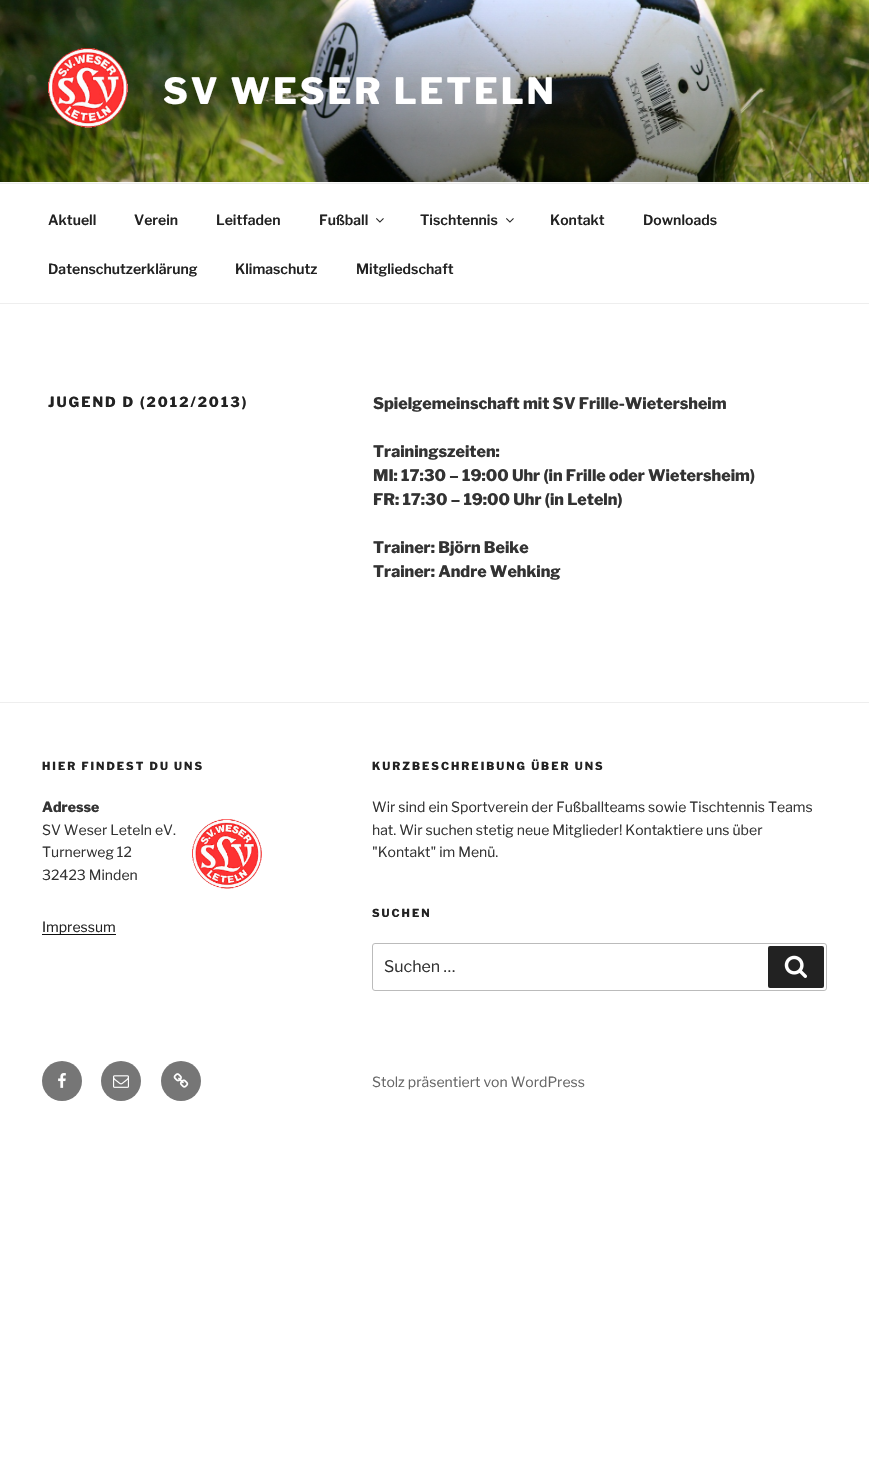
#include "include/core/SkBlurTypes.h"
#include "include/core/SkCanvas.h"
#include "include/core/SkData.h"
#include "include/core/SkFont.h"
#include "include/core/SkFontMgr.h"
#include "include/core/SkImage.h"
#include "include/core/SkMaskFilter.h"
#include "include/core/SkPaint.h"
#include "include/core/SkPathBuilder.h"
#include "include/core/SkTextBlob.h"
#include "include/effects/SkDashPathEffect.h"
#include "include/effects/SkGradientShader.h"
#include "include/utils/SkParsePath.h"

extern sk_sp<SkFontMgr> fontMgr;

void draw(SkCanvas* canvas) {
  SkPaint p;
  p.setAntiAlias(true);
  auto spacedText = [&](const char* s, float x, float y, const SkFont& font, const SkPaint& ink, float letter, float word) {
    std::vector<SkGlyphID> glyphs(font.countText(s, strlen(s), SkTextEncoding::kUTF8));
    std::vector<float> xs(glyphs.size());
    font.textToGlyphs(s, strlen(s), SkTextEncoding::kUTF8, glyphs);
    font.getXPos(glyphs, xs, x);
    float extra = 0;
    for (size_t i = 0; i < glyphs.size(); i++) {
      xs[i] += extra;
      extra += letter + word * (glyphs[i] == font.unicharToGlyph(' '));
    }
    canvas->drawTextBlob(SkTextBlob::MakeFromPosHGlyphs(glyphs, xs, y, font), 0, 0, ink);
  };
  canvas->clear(SK_ColorWHITE);
  p.setColor(SkColorSetRGB(250, 250, 250));
  canvas->drawRect(SkRect::MakeLTRB(0, 182, 869, 183), p);
  canvas->drawImageRect(SkImages::DeferredFromEncodedData(SkData::MakeFromFileName("images/1.png")), SkRect::MakeLTRB(0, 0, 869, 182), SkSamplingOptions());
  canvas->drawImageRect(SkImages::DeferredFromEncodedData(SkData::MakeFromFileName("images/2.png")), SkRect::MakeLTRB(48, 48, 128, 128), SkSamplingOptions());
  p.setColor(SkColorSetRGB(238, 238, 238));
  canvas->drawRect(SkRect::MakeLTRB(0, 183, 869, 184), p);
  canvas->drawRect(SkRect::MakeLTRB(0, 303, 869, 304), p);
  canvas->drawImageRect(SkImages::DeferredFromEncodedData(SkData::MakeFromFileName("images/3.png")), SkRect::MakeLTRB(376, 218, 384, 223), SkSamplingOptions());
  canvas->drawImageRect(SkImages::DeferredFromEncodedData(SkData::MakeFromFileName("images/3.png")), SkRect::MakeLTRB(506, 218, 514, 223), SkSamplingOptions());
  canvas->drawRect(SkRect::MakeLTRB(0, 702, 869, 703), p);
  canvas->drawImageRect(SkImages::DeferredFromEncodedData(SkData::MakeFromFileName("images/4.png")), SkRect::MakeLTRB(192, 819, 262, 889), SkSamplingOptions());
  p.setColor(SkColorSetRGB(15, 15, 15));
  canvas->drawRect(SkRect::MakeLTRB(42, 934, 116, 935), p);
  p.setStyle(SkPaint::kStroke_Style);
  p.setStrokeWidth(1);
  p.setColor(SkColorSetRGB(187, 187, 187));
  canvas->drawRoundRect(SkRect::MakeLTRB(372.5f, 943.5f, 826.5f, 990.5f), 2.5f, 2.5f, p);
  p.setStyle(SkPaint::kFill_Style);
  p.setColor(SkColorSetRGB(34, 34, 34));
  canvas->drawRoundRect(SkRect::MakeLTRB(768, 946, 824, 988), 2, 2, p);
  canvas->drawImageRect(SkImages::DeferredFromEncodedData(SkData::MakeFromFileName("images/5.png")), SkRect::MakeLTRB(784, 955, 807, 978), SkSamplingOptions());
  p.setColor(SkColorSetRGB(118, 118, 118));
  canvas->drawCircle(62, 1081, 20, p);
  canvas->drawImageRect(SkImages::DeferredFromEncodedData(SkData::MakeFromFileName("images/6.png")), SkRect::MakeLTRB(58, 1073, 66, 1088), SkSamplingOptions());
  canvas->drawCircle(121, 1081, 20, p);
  canvas->drawImageRect(SkImages::DeferredFromEncodedData(SkData::MakeFromFileName("images/7.png")), SkRect::MakeLTRB(113, 1075, 129, 1088), SkSamplingOptions());
  canvas->drawCircle(181, 1081, 20, p);
  canvas->drawImageRect(SkImages::DeferredFromEncodedData(SkData::MakeFromFileName("images/8.png")), SkRect::MakeLTRB(173, 1073, 189, 1088), SkSamplingOptions());
  SkFont font1(fontMgr->matchFamilyStyle("Libre Franklin", SkFontStyle(800, SkFontStyle::kNormal_Width, SkFontStyle::kUpright_Slant)), 36);
  font1.setSubpixel(true);
  p.setColor(SK_ColorWHITE);
  spacedText("SV WESER LETELN", 163, 104, font1, p, 2.9f, 0);
  SkFont font2(fontMgr->matchFamilyStyle("Libre Franklin", SkFontStyle(600, SkFontStyle::kNormal_Width, SkFontStyle::kUpright_Slant)), 14);
  font2.setSubpixel(true);
  p.setColor(SkColorSetRGB(34, 34, 34));
  canvas->drawString("Aktuell", 48, 225, font2, p);
  canvas->drawString("Verein", 134, 225, font2, p);
  canvas->drawString("Leitfaden", 216, 225, font2, p);
  canvas->drawString("Fußball", 319, 225, font2, p);
  canvas->drawString("Tischtennis", 420, 225, font2, p);
  canvas->drawString("Kontakt", 550, 225, font2, p);
  canvas->drawString("Downloads", 643, 225, font2, p);
  canvas->drawString("Datenschutzerklärung", 48, 274, font2, p);
  canvas->drawString("Klimaschutz", 235, 274, font2, p);
  canvas->drawString("Mitgliedschaft", 356, 274, font2, p);
  SkFont font3(fontMgr->matchFamilyStyle("Libre Franklin", SkFontStyle(800, SkFontStyle::kNormal_Width, SkFontStyle::kUpright_Slant)), 14);
  font3.setSubpixel(true);
  spacedText("JUGEND D (2012/2013)", 48, 407, font3, p, 2, 0);
  SkFont font4(fontMgr->matchFamilyStyle("Libre Franklin", SkFontStyle(800, SkFontStyle::kNormal_Width, SkFontStyle::kUpright_Slant)), 16);
  font4.setSubpixel(true);
  p.setColor(SkColorSetRGB(51, 51, 51));
  canvas->drawString("Spielgemeinschaft mit SV Frille-Wietersheim", 373, 409, font4, p);
  canvas->drawString("Trainingszeiten:", 373, 457, font4, p);
  canvas->drawString("MI: 17:30 – 19:00 Uhr (in Frille oder Wietersheim)", 373, 481, font4, p);
  canvas->drawString("FR: 17:30 – 19:00 Uhr (in Leteln)", 373, 505, font4, p);
  canvas->drawString("Trainer: Björn Beike", 373, 553, font4, p);
  canvas->drawString("Trainer: Andre Wehking", 373, 577, font4, p);
  SkFont font5(fontMgr->matchFamilyStyle("Libre Franklin", SkFontStyle(800, SkFontStyle::kNormal_Width, SkFontStyle::kUpright_Slant)), 11);
  font5.setSubpixel(true);
  p.setColor(SkColorSetRGB(34, 34, 34));
  spacedText("HIER FINDEST DU UNS", 42, 770, font5, p, 2, 0);
  p.setColor(SkColorSetRGB(51, 51, 51));
  canvas->drawString("Adresse", 42, 812, font3, p);
  SkFont font6(fontMgr->matchFamilyStyle("Libre Franklin", SkFontStyle::Normal()), 14);
  font6.setSubpixel(true);
  canvas->drawString("SV Weser Leteln eV.", 42, 835, font6, p);
  canvas->drawString("Turnerweg 12", 42, 857, font6, p);
  canvas->drawString("32423 Minden", 42, 880, font6, p);
  p.setColor(SkColorSetRGB(34, 34, 34));
  canvas->drawString("Impressum", 42, 932, font6, p);
  spacedText("KURZBESCHREIBUNG ÜBER UNS", 372, 770, font5, p, 2, 0);
  p.setColor(SkColorSetRGB(51, 51, 51));
  canvas->drawString("Wir sind ein Sportverein der Fußballteams sowie Tischtennis Teams", 372, 812, font6, p);
  canvas->drawString("hat. Wir suchen stetig neue Mitglieder! Kontaktiere uns über", 372, 835, font6, p);
  canvas->drawString("\"Kontakt\" im Menü.", 372, 857, font6, p);
  p.setColor(SkColorSetRGB(34, 34, 34));
  spacedText("SUCHEN", 372, 917, font5, p, 2, 0);
  SkFont font7(fontMgr->matchFamilyStyle("Libre Franklin", SkFontStyle::Normal()), 16);
  font7.setSubpixel(true);
  p.setColor(SkColorSetRGB(51, 51, 51));
  canvas->drawString("Suchen …", 384, 972, font7, p);
  p.setColor(SkColorSetRGB(102, 102, 102));
  canvas->drawString("Stolz präsentiert von WordPress", 372, 1087, font6, p);
}
